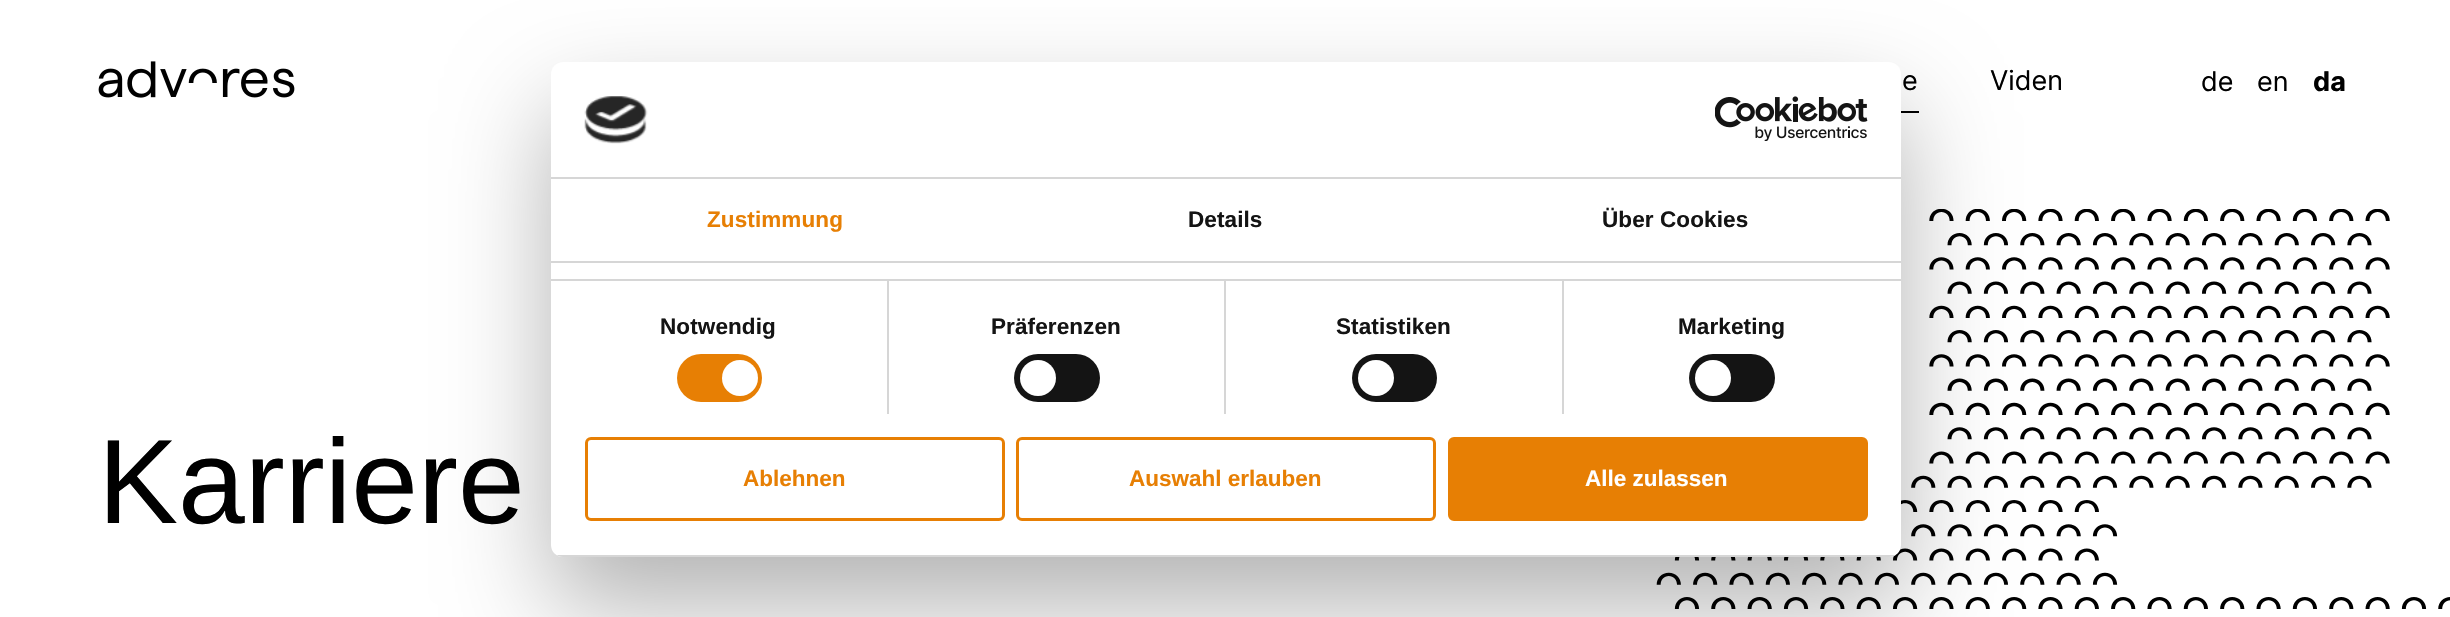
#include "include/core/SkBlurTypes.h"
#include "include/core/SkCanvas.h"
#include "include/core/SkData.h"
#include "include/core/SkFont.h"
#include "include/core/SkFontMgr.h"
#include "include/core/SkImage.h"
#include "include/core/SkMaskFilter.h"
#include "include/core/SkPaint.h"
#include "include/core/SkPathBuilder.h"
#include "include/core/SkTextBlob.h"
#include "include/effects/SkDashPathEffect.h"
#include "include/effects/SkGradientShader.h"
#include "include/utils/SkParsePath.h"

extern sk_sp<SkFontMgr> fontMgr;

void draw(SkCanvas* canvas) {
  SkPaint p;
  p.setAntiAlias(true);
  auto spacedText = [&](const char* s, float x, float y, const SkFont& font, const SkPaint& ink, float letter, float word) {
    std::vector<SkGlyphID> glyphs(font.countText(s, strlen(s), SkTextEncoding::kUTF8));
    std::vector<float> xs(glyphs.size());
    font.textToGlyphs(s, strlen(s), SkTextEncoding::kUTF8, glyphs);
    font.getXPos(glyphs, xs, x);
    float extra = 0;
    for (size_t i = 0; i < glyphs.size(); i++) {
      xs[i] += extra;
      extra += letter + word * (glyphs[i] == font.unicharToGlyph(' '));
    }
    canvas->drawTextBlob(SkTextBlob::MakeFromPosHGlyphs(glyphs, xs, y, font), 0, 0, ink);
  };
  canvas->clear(SK_ColorWHITE);
  canvas->drawImageRect(SkImages::DeferredFromEncodedData(SkData::MakeFromFileName("images/1.png")), SkRect::MakeLTRB(98, 61, 295, 98), SkSamplingOptions());
  p.setColor(SK_ColorBLACK);
  canvas->drawRect(SkRect::MakeLTRB(1901, 111, 1919, 113), p);
  canvas->drawImageRect(SkImages::DeferredFromEncodedData(SkData::MakeFromFileName("images/2.png")), SkRect::MakeLTRB(1656, 209, 2450, 609), SkSamplingOptions());
  p.setColor(SkColorSetARGB(77, 0, 0, 0));
  p.setMaskFilter(SkMaskFilter::MakeBlur(kNormal_SkBlurStyle, 51));
  canvas->drawRoundRect(SkRect::MakeLTRB(551, 110, 1901, 605), 12, 12, p);
  p.setMaskFilter(nullptr);
  p.setColor(SK_ColorWHITE);
  canvas->drawRoundRect(SkRect::MakeLTRB(551, 62, 1901, 557), 12, 12, p);
  p.setColor(SkColorSetRGB(214, 214, 214));
  canvas->drawRect(SkRect::MakeLTRB(551, 177, 1901, 179), p);
  canvas->drawImageRect(SkImages::DeferredFromEncodedData(SkData::MakeFromFileName("images/3.png")), SkRect::MakeLTRB(584, 96, 648, 144), SkSamplingOptions());
  canvas->drawImageRect(SkImages::DeferredFromEncodedData(SkData::MakeFromFileName("images/4.png")), SkRect::MakeLTRB(1715, 96, 1868, 141), SkSamplingOptions());
  canvas->drawRect(SkRect::MakeLTRB(551, 261, 1901, 263), p);
  canvas->drawRect(SkRect::MakeLTRB(551, 279, 1901, 281), p);
  canvas->drawRect(SkRect::MakeLTRB(887, 281, 889, 414), p);
  p.setColor(SkColorSetRGB(231, 127, 4));
  canvas->drawRoundRect(SkRect::MakeLTRB(677, 354, 762, 402), 24, 24, p);
  p.setColor(SK_ColorWHITE);
  canvas->drawCircle(740, 378, 18, p);
  p.setColor(SkColorSetRGB(214, 214, 214));
  canvas->drawRect(SkRect::MakeLTRB(1224, 281, 1226, 414), p);
  p.setColor(SkColorSetRGB(20, 20, 20));
  canvas->drawRoundRect(SkRect::MakeLTRB(1014, 354, 1100, 402), 24, 24, p);
  p.setColor(SK_ColorWHITE);
  canvas->drawCircle(1038, 378, 18, p);
  p.setColor(SkColorSetRGB(214, 214, 214));
  canvas->drawRect(SkRect::MakeLTRB(1562, 281, 1564, 414), p);
  p.setColor(SkColorSetRGB(20, 20, 20));
  canvas->drawRoundRect(SkRect::MakeLTRB(1352, 354, 1437, 402), 24, 24, p);
  p.setColor(SK_ColorWHITE);
  canvas->drawCircle(1376, 378, 18, p);
  p.setColor(SkColorSetRGB(20, 20, 20));
  canvas->drawRoundRect(SkRect::MakeLTRB(1689, 354, 1775, 402), 24, 24, p);
  p.setColor(SK_ColorWHITE);
  canvas->drawCircle(1713, 378, 18, p);
  canvas->save();
  canvas->clipPath(SkPathBuilder().moveTo(563, 62).lineTo(1889, 62).cubicTo(1895.5f, 62, 1901, 67.5f, 1901, 74).lineTo(1901, 545).cubicTo(1901, 551.5f, 1895.5f, 557, 1889, 557).lineTo(563, 557).cubicTo(556.5f, 557, 551, 551.5f, 551, 545).lineTo(551, 74).cubicTo(551, 67.5f, 556.5f, 62, 563, 62).close().detach(), true);
  p.setColor(SkColorSetRGB(214, 214, 214));
  canvas->drawRect(SkRect::MakeLTRB(551, 555, 1901, 557), p);
  canvas->restore();
  p.setStyle(SkPaint::kStroke_Style);
  p.setStrokeWidth(3);
  p.setColor(SkColorSetRGB(231, 127, 4));
  canvas->drawRoundRect(SkRect::MakeLTRB(586.5f, 438.5f, 1003.5f, 519.5f), 4.5f, 4.5f, p);
  canvas->drawRoundRect(SkRect::MakeLTRB(1017.5f, 438.5f, 1434.5f, 519.5f), 4.5f, 4.5f, p);
  p.setStyle(SkPaint::kFill_Style);
  canvas->drawRoundRect(SkRect::MakeLTRB(1449.5f, 438.5f, 1866.5f, 519.5f), 4.5f, 4.5f, p);
  p.setStyle(SkPaint::kStroke_Style);
  canvas->drawRoundRect(SkRect::MakeLTRB(1449.5f, 438.5f, 1866.5f, 519.5f), 4.5f, 4.5f, p);
  SkFont font1(fontMgr->matchFamilyStyle("Inter", SkFontStyle::Normal()), 27);
  font1.setSubpixel(true);
  p.setStyle(SkPaint::kFill_Style);
  p.setColor(SK_ColorBLACK);
  canvas->drawString("e", 1902, 90, font1, p);
  canvas->drawString("Viden", 1990, 90, font1, p);
  canvas->drawString("de", 2201, 91, font1, p);
  canvas->drawString("en", 2257, 91, font1, p);
  SkFont font2(fontMgr->matchFamilyStyle("Inter", SkFontStyle::Bold()), 27);
  font2.setSubpixel(true);
  canvas->drawString("da", 2313, 91, font2, p);
  SkFont font3(fontMgr->matchFamilyStyle("Liberation Sans", SkFontStyle::Normal()), 120);
  font3.setSubpixel(true);
  canvas->drawString("Karriere", 98, 523, font3, p);
  SkFont font4(fontMgr->matchFamilyStyle("Liberation Sans", SkFontStyle::Bold()), 22.5f);
  font4.setSubpixel(true);
  p.setColor(SkColorSetRGB(231, 127, 4));
  spacedText("Zustimmung", 707, 227, font4, p, 0.1f, 0);
  p.setColor(SkColorSetRGB(20, 20, 20));
  spacedText("Details", 1188, 227, font4, p, 0.1f, 0);
  spacedText("Über Cookies", 1602, 227, font4, p, 0.1f, 0);
  spacedText("Notwendig", 660, 334, font4, p, 0.1f, 0);
  spacedText("Präferenzen", 991, 334, font4, p, 0.1f, 0);
  spacedText("Statistiken", 1336, 334, font4, p, 0.1f, 0);
  spacedText("Marketing", 1678, 334, font4, p, 0.1f, 0);
  p.setColor(SkColorSetRGB(231, 127, 4));
  canvas->drawString("Ablehnen", 743, 486, font4, p);
  canvas->drawString("Auswahl erlauben", 1129, 486, font4, p);
  p.setColor(SK_ColorWHITE);
  canvas->drawString("Alle zulassen", 1585, 486, font4, p);
}
